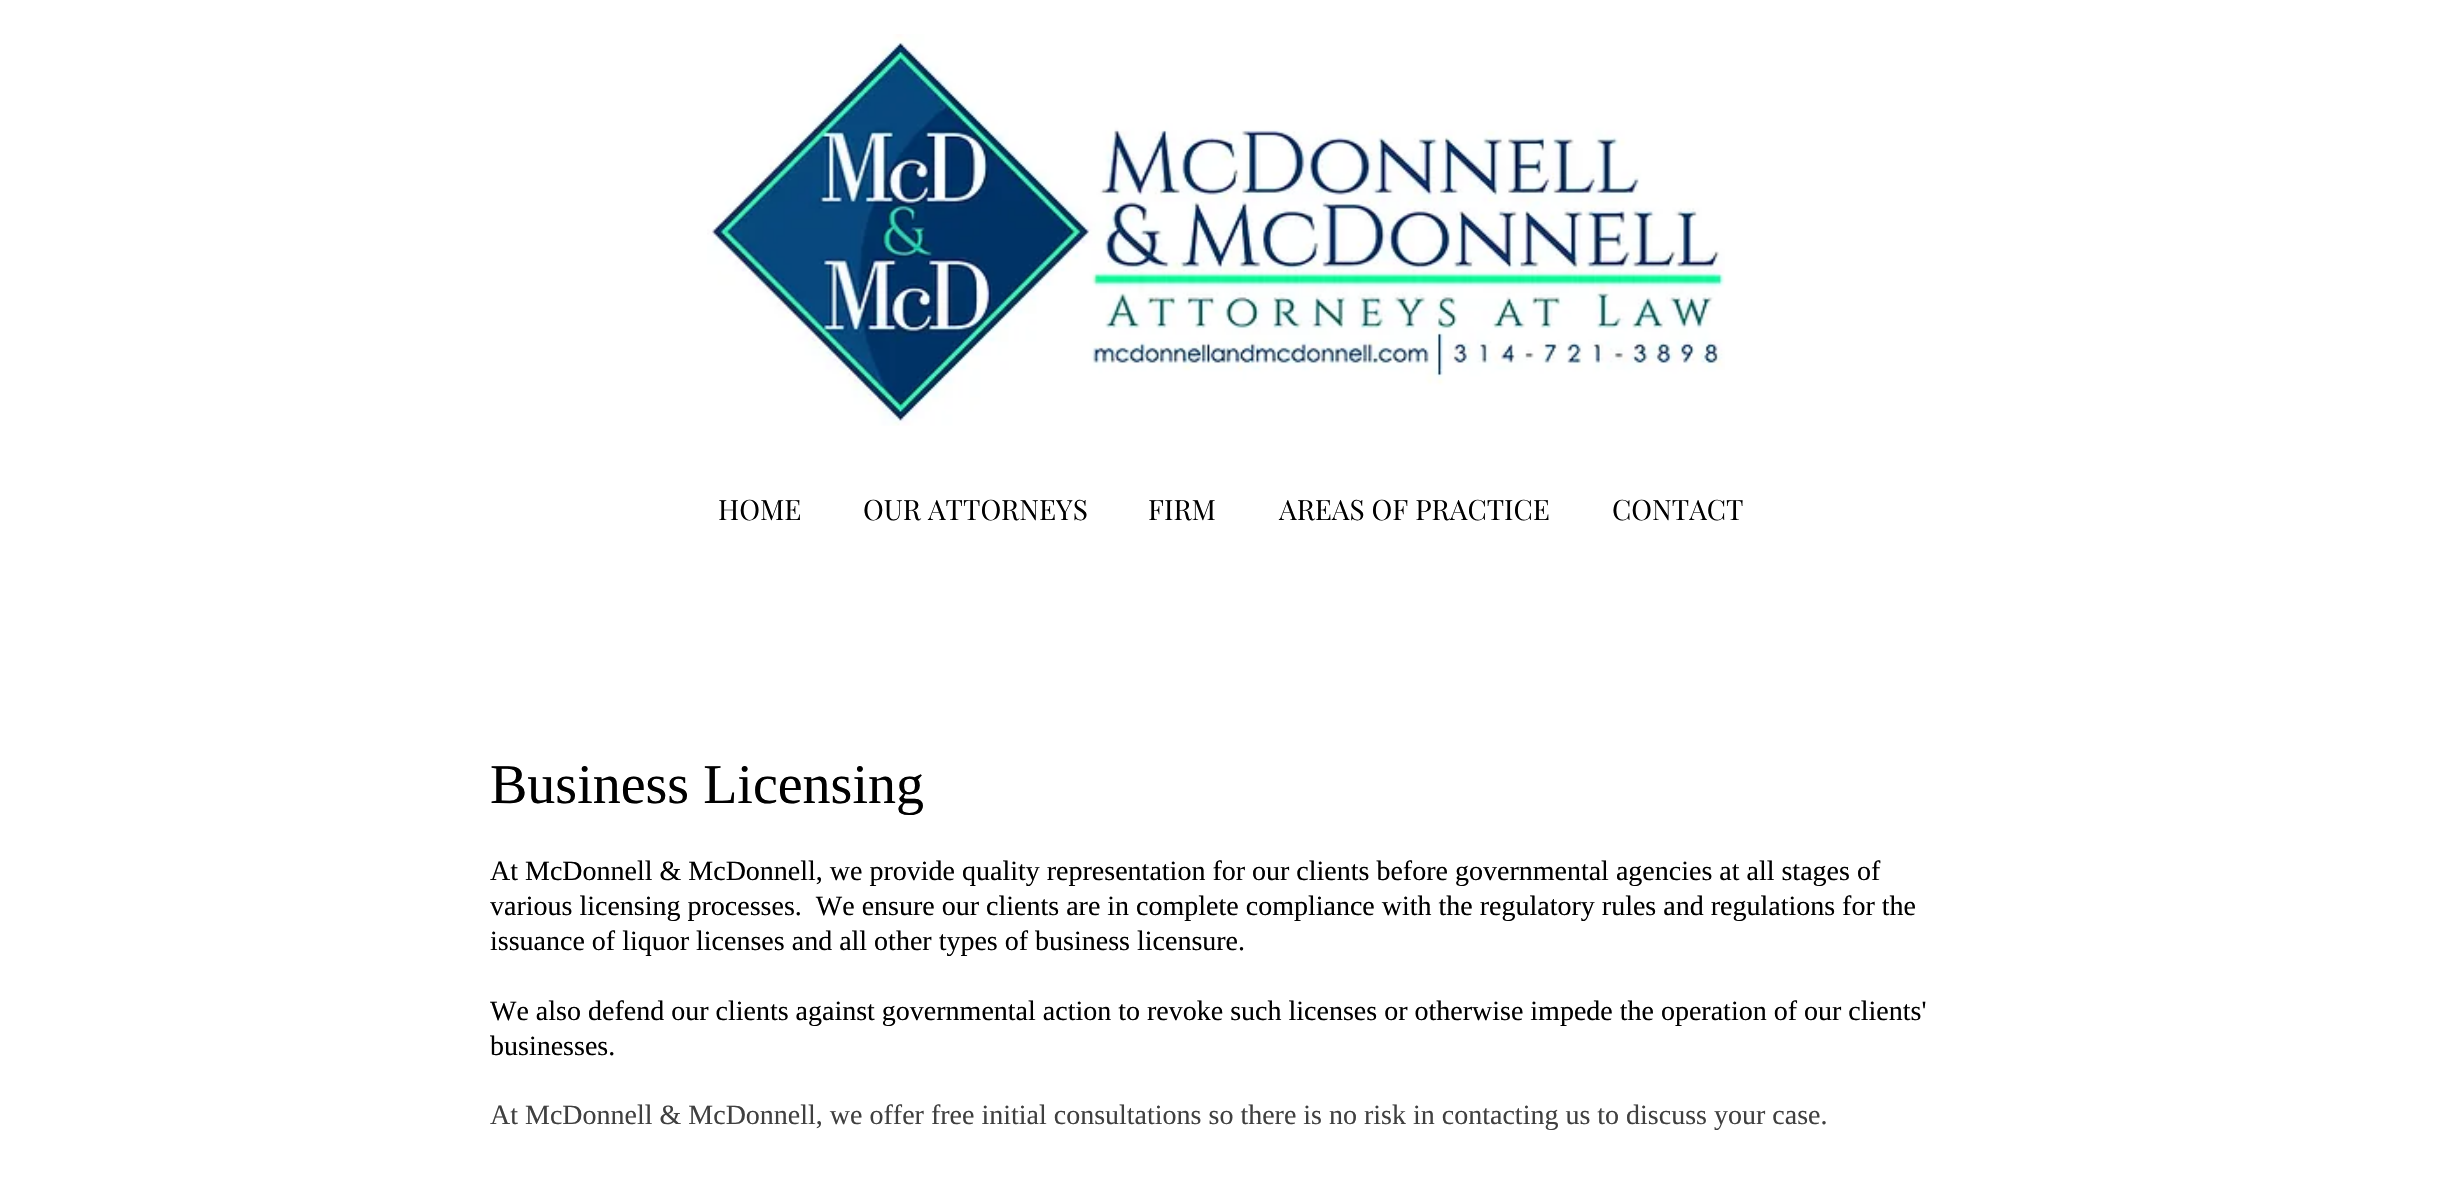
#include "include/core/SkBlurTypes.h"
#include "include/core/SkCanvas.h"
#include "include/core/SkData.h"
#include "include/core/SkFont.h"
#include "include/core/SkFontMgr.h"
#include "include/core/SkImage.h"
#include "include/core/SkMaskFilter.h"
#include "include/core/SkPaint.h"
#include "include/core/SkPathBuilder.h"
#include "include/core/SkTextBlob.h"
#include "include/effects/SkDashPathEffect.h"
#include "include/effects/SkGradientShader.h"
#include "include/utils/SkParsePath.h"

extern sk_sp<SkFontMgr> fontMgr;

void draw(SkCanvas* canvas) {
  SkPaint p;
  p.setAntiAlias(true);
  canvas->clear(SK_ColorWHITE);
  canvas->drawImageRect(SkImages::DeferredFromEncodedData(SkData::MakeFromFileName("images/1.png")), SkRect::MakeLTRB(707, 34, 1725, 426), SkSamplingOptions());
  SkFont font1(fontMgr->matchFamilyStyle("Playfair Display", SkFontStyle::Normal()), 28);
  font1.setSubpixel(true);
  p.setColor(SK_ColorBLACK);
  canvas->drawString("HOME", 718, 520, font1, p);
  canvas->drawString("OUR ATTORNEYS", 863, 520, font1, p);
  canvas->drawString("FIRM", 1148, 520, font1, p);
  canvas->drawString("AREAS OF PRACTICE", 1279, 520, font1, p);
  canvas->drawString("CONTACT", 1612, 520, font1, p);
  SkFont font2(fontMgr->matchFamilyStyle("Liberation Serif", SkFontStyle::Normal()), 56);
  font2.setSubpixel(true);
  canvas->drawString("Business Licensing", 490, 803, font2, p);
  SkFont font3(fontMgr->matchFamilyStyle("Liberation Serif", SkFontStyle::Normal()), 28);
  font3.setSubpixel(true);
  canvas->drawString("At McDonnell & McDonnell, we provide quality representation for our clients before governmental agencies at all stages of", 490, 880, font3, p);
  canvas->drawString("various licensing processes.  We ensure our clients are in complete compliance with the regulatory rules and regulations for the", 490, 915, font3, p);
  canvas->drawString("issuance of liquor licenses and all other types of business licensure.", 490, 950, font3, p);
  canvas->drawString("We also defend our clients against governmental action to revoke such licenses or otherwise impede the operation of our clients'", 490, 1020, font3, p);
  canvas->drawString("businesses.", 490, 1055, font3, p);
  p.setColor(SkColorSetRGB(64, 64, 64));
  canvas->drawString("At McDonnell & McDonnell, we offer free initial consultations so there is no risk in contacting us to discuss your case.", 490, 1124, font3, p);
}
